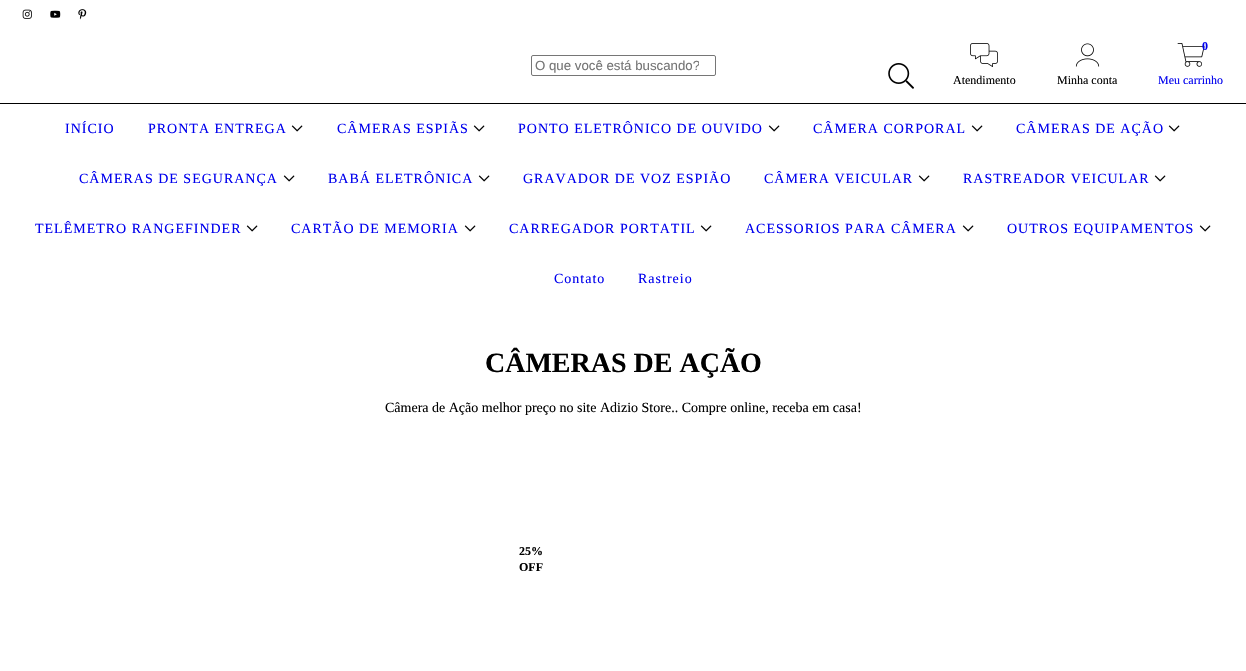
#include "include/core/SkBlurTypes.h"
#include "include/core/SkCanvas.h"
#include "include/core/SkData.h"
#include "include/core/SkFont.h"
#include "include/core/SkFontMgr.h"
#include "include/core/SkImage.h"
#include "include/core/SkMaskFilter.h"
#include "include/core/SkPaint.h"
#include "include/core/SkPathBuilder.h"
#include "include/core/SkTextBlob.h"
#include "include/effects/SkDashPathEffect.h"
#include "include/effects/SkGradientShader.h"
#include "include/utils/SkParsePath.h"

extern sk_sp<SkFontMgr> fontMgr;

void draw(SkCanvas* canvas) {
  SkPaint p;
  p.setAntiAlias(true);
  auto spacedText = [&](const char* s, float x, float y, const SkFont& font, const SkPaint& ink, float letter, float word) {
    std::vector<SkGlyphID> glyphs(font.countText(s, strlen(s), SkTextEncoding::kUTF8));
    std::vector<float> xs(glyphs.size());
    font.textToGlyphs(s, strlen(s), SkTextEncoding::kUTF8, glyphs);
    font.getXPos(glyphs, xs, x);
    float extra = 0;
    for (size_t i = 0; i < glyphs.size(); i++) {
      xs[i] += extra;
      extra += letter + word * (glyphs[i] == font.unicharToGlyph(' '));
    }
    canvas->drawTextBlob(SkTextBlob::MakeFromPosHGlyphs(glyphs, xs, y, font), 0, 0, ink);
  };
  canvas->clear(SK_ColorWHITE);
  canvas->drawImageRect(SkImages::DeferredFromEncodedData(SkData::MakeFromFileName("images/1.png")), SkRect::MakeLTRB(22, 9, 32, 19), SkSamplingOptions());
  canvas->drawImageRect(SkImages::DeferredFromEncodedData(SkData::MakeFromFileName("images/2.png")), SkRect::MakeLTRB(50, 10, 61, 18), SkSamplingOptions());
  canvas->drawImageRect(SkImages::DeferredFromEncodedData(SkData::MakeFromFileName("images/3.png")), SkRect::MakeLTRB(78, 9, 87, 20), SkSamplingOptions());
  p.setStyle(SkPaint::kStroke_Style);
  p.setStrokeWidth(1);
  p.setColor(SkColorSetRGB(118, 118, 118));
  canvas->drawRoundRect(SkRect::MakeLTRB(531.5f, 55.5f, 715.5f, 75.5f), 1.5f, 1.5f, p);
  canvas->drawImageRect(SkImages::DeferredFromEncodedData(SkData::MakeFromFileName("images/4.png")), SkRect::MakeLTRB(888, 63, 914, 89), SkSamplingOptions());
  canvas->drawImageRect(SkImages::DeferredFromEncodedData(SkData::MakeFromFileName("images/5.png")), SkRect::MakeLTRB(970, 43, 998, 67), SkSamplingOptions());
  canvas->drawImageRect(SkImages::DeferredFromEncodedData(SkData::MakeFromFileName("images/6.png")), SkRect::MakeLTRB(1075, 43, 1100, 67), SkSamplingOptions());
  canvas->drawImageRect(SkImages::DeferredFromEncodedData(SkData::MakeFromFileName("images/7.png")), SkRect::MakeLTRB(1177, 43, 1205, 67), SkSamplingOptions());
  p.setStyle(SkPaint::kFill_Style);
  p.setColor(SK_ColorBLACK);
  canvas->drawRect(SkRect::MakeLTRB(0, 103, 1246, 104), p);
  canvas->drawImageRect(SkImages::DeferredFromEncodedData(SkData::MakeFromFileName("images/8.png")), SkRect::MakeLTRB(291, 125, 303, 132), SkSamplingOptions());
  canvas->drawImageRect(SkImages::DeferredFromEncodedData(SkData::MakeFromFileName("images/8.png")), SkRect::MakeLTRB(473, 125, 485, 132), SkSamplingOptions());
  canvas->drawImageRect(SkImages::DeferredFromEncodedData(SkData::MakeFromFileName("images/8.png")), SkRect::MakeLTRB(768, 125, 780, 132), SkSamplingOptions());
  canvas->drawImageRect(SkImages::DeferredFromEncodedData(SkData::MakeFromFileName("images/8.png")), SkRect::MakeLTRB(971, 125, 983, 132), SkSamplingOptions());
  canvas->drawImageRect(SkImages::DeferredFromEncodedData(SkData::MakeFromFileName("images/8.png")), SkRect::MakeLTRB(1168, 125, 1180, 132), SkSamplingOptions());
  canvas->drawImageRect(SkImages::DeferredFromEncodedData(SkData::MakeFromFileName("images/8.png")), SkRect::MakeLTRB(283, 175, 295, 182), SkSamplingOptions());
  canvas->drawImageRect(SkImages::DeferredFromEncodedData(SkData::MakeFromFileName("images/8.png")), SkRect::MakeLTRB(478, 175, 490, 182), SkSamplingOptions());
  canvas->drawImageRect(SkImages::DeferredFromEncodedData(SkData::MakeFromFileName("images/8.png")), SkRect::MakeLTRB(918, 175, 930, 182), SkSamplingOptions());
  canvas->drawImageRect(SkImages::DeferredFromEncodedData(SkData::MakeFromFileName("images/8.png")), SkRect::MakeLTRB(1154, 175, 1166, 182), SkSamplingOptions());
  canvas->drawImageRect(SkImages::DeferredFromEncodedData(SkData::MakeFromFileName("images/8.png")), SkRect::MakeLTRB(246, 225, 258, 232), SkSamplingOptions());
  canvas->drawImageRect(SkImages::DeferredFromEncodedData(SkData::MakeFromFileName("images/8.png")), SkRect::MakeLTRB(464, 225, 476, 232), SkSamplingOptions());
  canvas->drawImageRect(SkImages::DeferredFromEncodedData(SkData::MakeFromFileName("images/8.png")), SkRect::MakeLTRB(700, 225, 712, 232), SkSamplingOptions());
  canvas->drawImageRect(SkImages::DeferredFromEncodedData(SkData::MakeFromFileName("images/8.png")), SkRect::MakeLTRB(962, 225, 974, 232), SkSamplingOptions());
  canvas->drawImageRect(SkImages::DeferredFromEncodedData(SkData::MakeFromFileName("images/8.png")), SkRect::MakeLTRB(1199, 225, 1211, 232), SkSamplingOptions());
  canvas->save();
  canvas->clipRect(SkRect::MakeLTRB(535, 58, 699, 73));
  SkFont font1(fontMgr->matchFamilyStyle("Liberation Sans", SkFontStyle::Normal()), 13.25f);
  font1.setSubpixel(true);
  p.setColor(SkColorSetRGB(117, 117, 117));
  canvas->drawString("O que você está buscando?", 535, 70, font1, p);
  canvas->restore();
  SkFont font2(fontMgr->matchFamilyStyle("Liberation Serif", SkFontStyle::Normal()), 12);
  font2.setSubpixel(true);
  p.setColor(SK_ColorBLACK);
  canvas->drawString("Atendimento", 953, 84, font2, p);
  canvas->drawString("Minha conta", 1057, 84, font2, p);
  SkFont font3(fontMgr->matchFamilyStyle("Liberation Serif", SkFontStyle::Bold()), 12);
  font3.setSubpixel(true);
  p.setColor(SkColorSetRGB(0, 0, 238));
  canvas->drawString("0", 1202, 50, font3, p);
  canvas->drawString("Meu carrinho", 1158, 84, font2, p);
  SkFont font4(fontMgr->matchFamilyStyle("Liberation Serif", SkFontStyle::Normal()), 14);
  font4.setSubpixel(true);
  spacedText("INÍCIO", 65, 133, font4, p, 1, 0);
  spacedText("PRONTA ENTREGA", 148, 133, font4, p, 1, 0);
  spacedText("CÂMERAS ESPIÃS", 337, 133, font4, p, 1, 0);
  spacedText("PONTO ELETRÔNICO DE OUVIDO", 518, 133, font4, p, 1, 0);
  spacedText("CÂMERA CORPORAL", 813, 133, font4, p, 1, 0);
  spacedText("CÂMERAS DE AÇÃO", 1016, 133, font4, p, 1, 0);
  spacedText("CÂMERAS DE SEGURANÇA", 79, 183, font4, p, 1, 0);
  spacedText("BABÁ ELETRÔNICA", 328, 183, font4, p, 1, 0);
  spacedText("GRAVADOR DE VOZ ESPIÃO", 523, 183, font4, p, 1, 0);
  spacedText("CÂMERA VEICULAR", 764, 183, font4, p, 1, 0);
  spacedText("RASTREADOR VEICULAR", 963, 183, font4, p, 1, 0);
  spacedText("TELÊMETRO RANGEFINDER", 35, 233, font4, p, 1, 0);
  spacedText("CARTÃO DE MEMORIA", 291, 233, font4, p, 1, 0);
  spacedText("CARREGADOR PORTATIL", 509, 233, font4, p, 1, 0);
  spacedText("ACESSORIOS PARA CÂMERA", 745, 233, font4, p, 1, 0);
  spacedText("OUTROS EQUIPAMENTOS", 1007, 233, font4, p, 1, 0);
  spacedText("Contato", 554, 283, font4, p, 1, 0);
  spacedText("Rastreio", 638, 283, font4, p, 1, 0);
  SkFont font5(fontMgr->matchFamilyStyle("Liberation Serif", SkFontStyle::Bold()), 28);
  font5.setSubpixel(true);
  p.setColor(SK_ColorBLACK);
  canvas->drawString("CÂMERAS DE AÇÃO", 485, 372, font5, p);
  canvas->drawString("Câmera de Ação melhor preço no site Adizio Store.. Compre online, receba em casa!", 385, 412, font4, p);
  canvas->drawString("25%", 519, 555, font3, p);
  canvas->drawString("OFF", 519, 571, font3, p);
}
